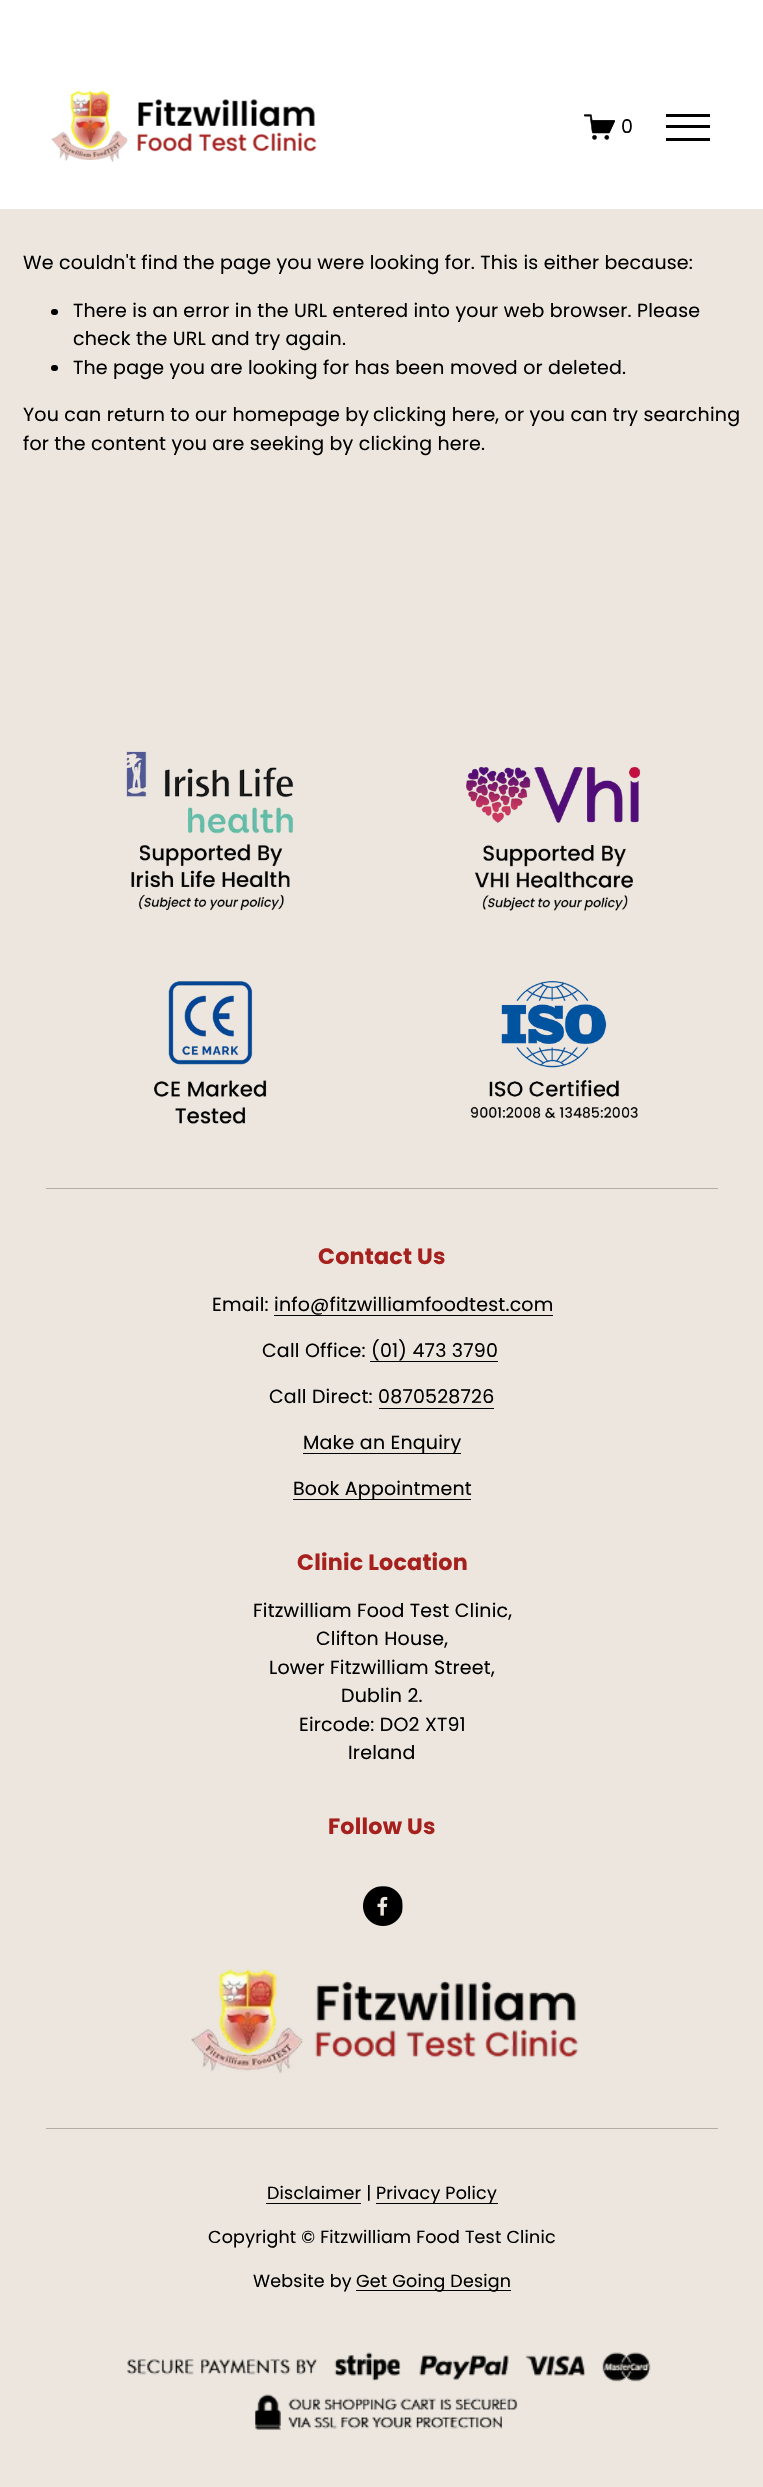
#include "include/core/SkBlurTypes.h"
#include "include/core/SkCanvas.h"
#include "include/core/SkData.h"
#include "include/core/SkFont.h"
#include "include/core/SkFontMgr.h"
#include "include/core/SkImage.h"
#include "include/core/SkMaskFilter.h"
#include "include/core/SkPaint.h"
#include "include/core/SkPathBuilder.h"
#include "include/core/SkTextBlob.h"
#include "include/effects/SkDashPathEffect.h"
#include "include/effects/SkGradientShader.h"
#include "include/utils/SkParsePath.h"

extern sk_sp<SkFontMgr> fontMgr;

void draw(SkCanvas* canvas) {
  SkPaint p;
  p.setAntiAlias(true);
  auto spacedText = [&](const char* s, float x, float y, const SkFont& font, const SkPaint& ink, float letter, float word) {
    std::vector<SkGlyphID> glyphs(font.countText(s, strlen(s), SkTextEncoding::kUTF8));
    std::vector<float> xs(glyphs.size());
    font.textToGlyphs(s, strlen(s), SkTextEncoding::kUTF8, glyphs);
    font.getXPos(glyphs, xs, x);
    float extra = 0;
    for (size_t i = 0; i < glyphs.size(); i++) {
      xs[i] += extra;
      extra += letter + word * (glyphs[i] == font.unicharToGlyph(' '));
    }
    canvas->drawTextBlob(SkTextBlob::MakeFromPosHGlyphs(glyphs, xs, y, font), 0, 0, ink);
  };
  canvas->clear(SkColorSetRGB(236, 230, 222));
  p.setColor(SK_ColorWHITE);
  canvas->drawRect(SkRect::MakeLTRB(0, 0, 763, 209), p);
  canvas->drawImageRect(SkImages::DeferredFromEncodedData(SkData::MakeFromFileName("images/1.png")), SkRect::MakeLTRB(51, 90, 317, 162), SkSamplingOptions());
  canvas->drawImageRect(SkImages::DeferredFromEncodedData(SkData::MakeFromFileName("images/2.png")), SkRect::MakeLTRB(584, 114, 615, 140), SkSamplingOptions());
  p.setColor(SK_ColorBLACK);
  canvas->drawRect(SkRect::MakeLTRB(666, 114, 710, 117), p);
  canvas->drawRect(SkRect::MakeLTRB(666, 125, 710, 128), p);
  canvas->drawRect(SkRect::MakeLTRB(666, 138, 710, 141), p);
  canvas->drawRoundRect(SkRect::MakeLTRB(51, 309, 58, 315), 3, 3, p);
  canvas->drawRoundRect(SkRect::MakeLTRB(51, 365, 58, 371), 3, 3, p);
  canvas->drawImageRect(SkImages::DeferredFromEncodedData(SkData::MakeFromFileName("images/3.png")), SkRect::MakeLTRB(126, 751, 294, 911), SkSamplingOptions());
  canvas->drawImageRect(SkImages::DeferredFromEncodedData(SkData::MakeFromFileName("images/4.png")), SkRect::MakeLTRB(466, 767, 641, 911), SkSamplingOptions());
  canvas->drawImageRect(SkImages::DeferredFromEncodedData(SkData::MakeFromFileName("images/5.png")), SkRect::MakeLTRB(154, 981, 267, 1124), SkSamplingOptions());
  canvas->drawImageRect(SkImages::DeferredFromEncodedData(SkData::MakeFromFileName("images/6.png")), SkRect::MakeLTRB(470, 981, 638, 1119), SkSamplingOptions());
  p.setColor(SkColorSetRGB(177, 173, 167));
  canvas->drawRect(SkRect::MakeLTRB(46, 1188, 718, 1189), p);
  p.setColor(SK_ColorBLACK);
  canvas->drawRect(SkRect::MakeLTRB(274, 1315, 553, 1316), p);
  canvas->drawRect(SkRect::MakeLTRB(370, 1361, 498, 1362), p);
  canvas->drawRect(SkRect::MakeLTRB(379, 1408, 494, 1409), p);
  canvas->drawRect(SkRect::MakeLTRB(303, 1453, 461, 1454), p);
  canvas->drawRect(SkRect::MakeLTRB(293, 1499, 471, 1500), p);
  canvas->drawImageRect(SkImages::DeferredFromEncodedData(SkData::MakeFromFileName("images/7.png")), SkRect::MakeLTRB(363, 1886, 403, 1926), SkSamplingOptions());
  canvas->drawImageRect(SkImages::DeferredFromEncodedData(SkData::MakeFromFileName("images/8.png")), SkRect::MakeLTRB(191, 1969, 579, 2074), SkSamplingOptions());
  p.setColor(SkColorSetRGB(177, 173, 167));
  canvas->drawRect(SkRect::MakeLTRB(46, 2128, 718, 2129), p);
  p.setColor(SK_ColorBLACK);
  canvas->drawRect(SkRect::MakeLTRB(266, 2203, 361, 2204), p);
  canvas->drawRect(SkRect::MakeLTRB(376, 2203, 498, 2204), p);
  canvas->drawRect(SkRect::MakeLTRB(356, 2290, 511, 2291), p);
  canvas->drawImageRect(SkImages::DeferredFromEncodedData(SkData::MakeFromFileName("images/9.png")), SkRect::MakeLTRB(127, 2352, 651, 2430), SkSamplingOptions());
  SkFont font1(fontMgr->matchFamilyStyle("Poppins", SkFontStyle::Normal()), 19);
  font1.setSubpixel(true);
  spacedText("0", 621, 133, font1, p, 0.2f, 0);
  spacedText("We couldn't find the page you were looking for. This is either because:", 23, 269, font1, p, 0.2f, 0);
  spacedText("There is an error in the URL entered into your web browser. Please", 73, 317, font1, p, 0.2f, 0);
  spacedText("check the URL and try again.", 73, 345, font1, p, 0.2f, 0);
  spacedText("The page you are looking for has been moved or deleted.", 73, 374, font1, p, 0.2f, 0);
  spacedText("You can return to our homepage by", 23, 421, font1, p, 0.2f, 0);
  spacedText("clicking here, or you can try searching", 373, 421, font1, p, 0.2f, 0);
  spacedText("for the content you are seeking by clicking here.", 23, 450, font1, p, 0.2f, 0);
  SkFont font2(fontMgr->matchFamilyStyle("Poppins", SkFontStyle::Bold()), 22.25f);
  font2.setSubpixel(true);
  p.setColor(SkColorSetRGB(166, 33, 30));
  spacedText("Contact Us", 318, 1264, font2, p, 0.2f, 0);
  p.setColor(SK_ColorBLACK);
  spacedText("Email: info@fitzwilliamfoodtest.com", 212, 1311, font1, p, 0.2f, 0);
  spacedText("Call Office: (01) 473 3790", 262, 1357, font1, p, 0.2f, 0);
  spacedText("Call Direct: 0870528726", 269, 1403, font1, p, 0.2f, 0);
  spacedText("Make an Enquiry", 303, 1449, font1, p, 0.2f, 0);
  spacedText("Book Appointment", 293, 1495, font1, p, 0.2f, 0);
  p.setColor(SkColorSetRGB(166, 33, 30));
  spacedText("Clinic Location", 297, 1570, font2, p, 0.2f, 0);
  p.setColor(SK_ColorBLACK);
  spacedText("Fitzwilliam Food Test Clinic,", 253, 1617, font1, p, 0.2f, 0);
  spacedText("Clifton House,", 316, 1645, font1, p, 0.2f, 0);
  spacedText("Lower Fitzwilliam Street,", 269, 1674, font1, p, 0.2f, 0);
  spacedText("Dublin 2.", 341, 1702, font1, p, 0.2f, 0);
  spacedText("Eircode: DO2 XT91", 299, 1731, font1, p, 0.2f, 0);
  spacedText("Ireland", 348, 1759, font1, p, 0.2f, 0);
  p.setColor(SkColorSetRGB(166, 33, 30));
  spacedText("Follow Us", 328, 1834, font2, p, 0.2f, 0);
  SkFont font3(fontMgr->matchFamilyStyle("Poppins", SkFontStyle::Normal()), 17.5f);
  font3.setSubpixel(true);
  p.setColor(SK_ColorBLACK);
  spacedText("Disclaimer |", 267, 2199, font3, p, 0.2f, 0);
  spacedText("Privacy Policy", 376, 2199, font3, p, 0.2f, 0);
  spacedText("Copyright © Fitzwilliam Food Test Clinic", 208, 2243, font3, p, 0.2f, 0);
  spacedText("Website by", 253, 2287, font3, p, 0.2f, 0);
  spacedText("Get Going Design", 356, 2287, font3, p, 0.2f, 0);
}
